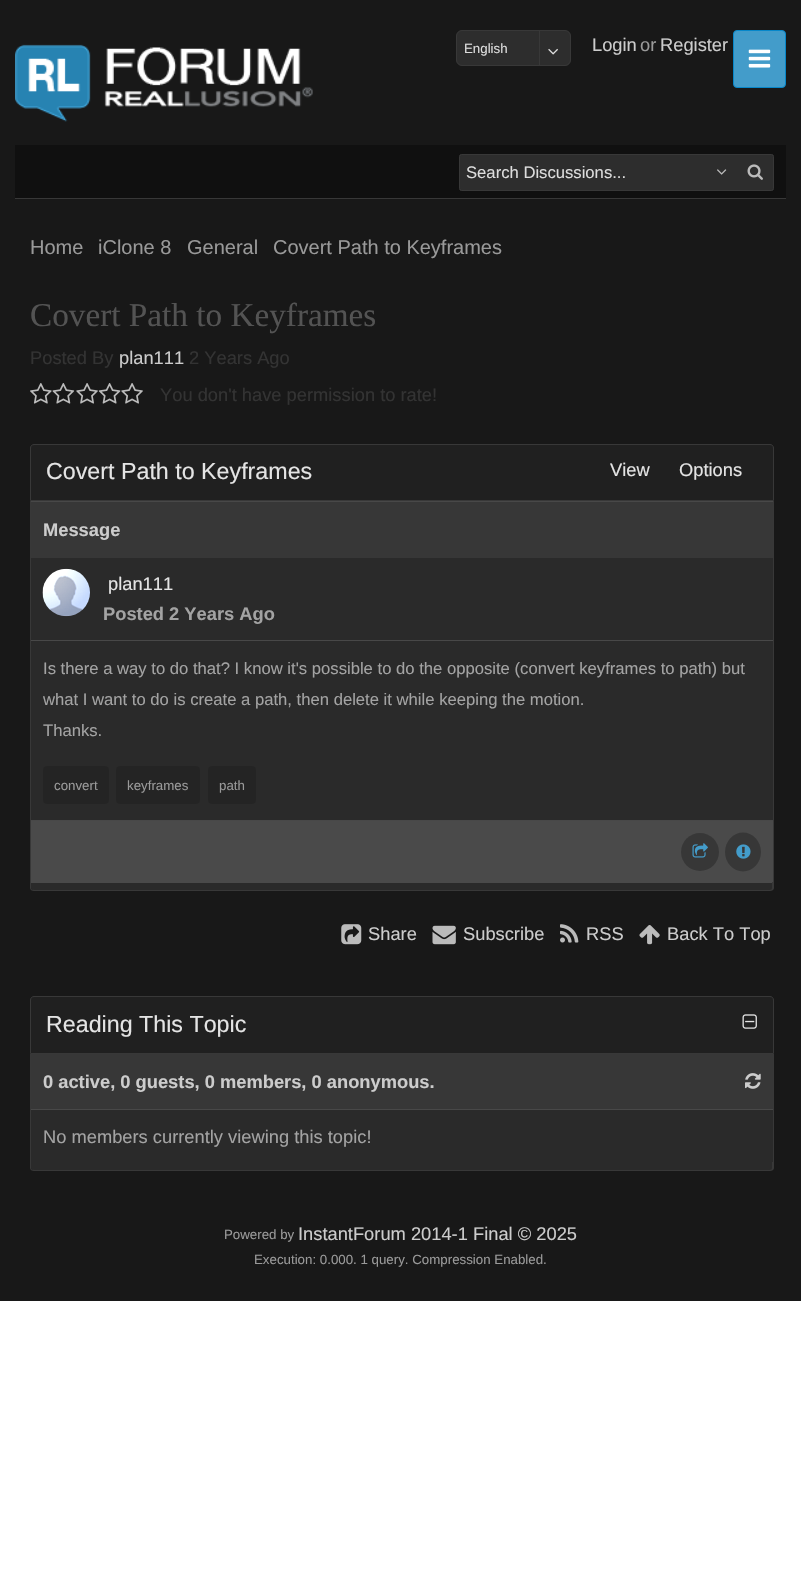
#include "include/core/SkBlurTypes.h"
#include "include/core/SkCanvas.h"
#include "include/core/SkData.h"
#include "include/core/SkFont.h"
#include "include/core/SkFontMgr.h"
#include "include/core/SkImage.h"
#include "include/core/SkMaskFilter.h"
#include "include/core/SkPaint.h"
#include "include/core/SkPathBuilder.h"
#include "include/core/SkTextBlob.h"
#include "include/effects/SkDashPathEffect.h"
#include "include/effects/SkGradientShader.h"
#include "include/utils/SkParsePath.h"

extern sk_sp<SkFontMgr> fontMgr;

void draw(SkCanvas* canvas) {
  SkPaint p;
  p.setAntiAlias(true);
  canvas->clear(SK_ColorWHITE);
  p.setColor(SkColorSetRGB(24, 24, 24));
  canvas->drawRect(SkRect::MakeLTRB(0, 0, 801, 1301), p);
  canvas->drawImageRect(SkImages::DeferredFromEncodedData(SkData::MakeFromFileName("images/1.png")), SkRect::MakeLTRB(15, 44, 313, 122), SkSamplingOptions());
  p.setColor(SkColorSetRGB(45, 45, 45));
  canvas->drawRoundRect(SkRect::MakeLTRB(456.5f, 30.5f, 570.5f, 65.5f), 5.5f, 5.5f, p);
  p.setStyle(SkPaint::kStroke_Style);
  p.setStrokeWidth(1);
  p.setColor(SkColorSetRGB(56, 56, 56));
  canvas->drawRoundRect(SkRect::MakeLTRB(456.5f, 30.5f, 570.5f, 65.5f), 5.5f, 5.5f, p);
  p.setStyle(SkPaint::kFill_Style);
  canvas->drawRect(SkRect::MakeLTRB(539, 31, 540, 65), p);
  canvas->drawImageRect(SkImages::DeferredFromEncodedData(SkData::MakeFromFileName("images/2.png")), SkRect::MakeLTRB(548, 48, 558, 55), SkSamplingOptions());
  p.setColor(SkColorSetRGB(67, 156, 202));
  canvas->drawRoundRect(SkRect::MakeLTRB(733.5f, 30.5f, 785.5f, 87.5f), 3.5f, 3.5f, p);
  p.setStyle(SkPaint::kStroke_Style);
  p.setColor(SkColorSetRGB(6, 135, 202));
  canvas->drawRoundRect(SkRect::MakeLTRB(733.5f, 30.5f, 785.5f, 87.5f), 3.5f, 3.5f, p);
  canvas->drawImageRect(SkImages::DeferredFromEncodedData(SkData::MakeFromFileName("images/3.png")), SkRect::MakeLTRB(748, 49, 771, 68), SkSamplingOptions());
  p.setStyle(SkPaint::kFill_Style);
  p.setColor(SkColorSetRGB(16, 16, 16));
  canvas->drawRect(SkRect::MakeLTRB(15, 145, 786, 198), p);
  p.setColor(SkColorSetRGB(56, 56, 56));
  canvas->drawRect(SkRect::MakeLTRB(15, 198, 786, 199), p);
  p.setColor(SkColorSetRGB(45, 45, 45));
  canvas->drawRoundRect(SkRect::MakeLTRB(459.5f, 154.5f, 773.5f, 190.5f), 2, 2, p);
  p.setStyle(SkPaint::kStroke_Style);
  p.setColor(SkColorSetRGB(56, 56, 56));
  canvas->drawRoundRect(SkRect::MakeLTRB(459.5f, 154.5f, 773.5f, 190.5f), 2, 2, p);
  canvas->drawImageRect(SkImages::DeferredFromEncodedData(SkData::MakeFromFileName("images/4.png")), SkRect::MakeLTRB(717, 169, 727, 175), SkSamplingOptions());
  canvas->drawImageRect(SkImages::DeferredFromEncodedData(SkData::MakeFromFileName("images/5.png")), SkRect::MakeLTRB(747, 164, 763, 180), SkSamplingOptions());
  canvas->drawImageRect(SkImages::DeferredFromEncodedData(SkData::MakeFromFileName("images/6.png")), SkRect::MakeLTRB(30, 383, 52, 404), SkSamplingOptions());
  canvas->drawImageRect(SkImages::DeferredFromEncodedData(SkData::MakeFromFileName("images/7.png")), SkRect::MakeLTRB(52, 383, 75, 404), SkSamplingOptions());
  canvas->drawImageRect(SkImages::DeferredFromEncodedData(SkData::MakeFromFileName("images/8.png")), SkRect::MakeLTRB(76, 383, 98, 404), SkSamplingOptions());
  canvas->drawImageRect(SkImages::DeferredFromEncodedData(SkData::MakeFromFileName("images/9.png")), SkRect::MakeLTRB(98, 383, 121, 404), SkSamplingOptions());
  canvas->drawImageRect(SkImages::DeferredFromEncodedData(SkData::MakeFromFileName("images/8.png")), SkRect::MakeLTRB(121, 383, 143, 404), SkSamplingOptions());
  p.setStyle(SkPaint::kFill_Style);
  p.setColor(SkColorSetRGB(32, 32, 32));
  canvas->drawPath(SkPathBuilder().moveTo(34, 444.5f).lineTo(770, 444.5f).cubicTo(772, 444.5f, 773.5f, 446, 773.5f, 448).lineTo(773.5f, 500.5f).lineTo(30.5f, 500.5f).lineTo(30.5f, 448).cubicTo(30.5f, 446, 32, 444.5f, 34, 444.5f).close().detach(), p);
  p.setStyle(SkPaint::kStroke_Style);
  p.setColor(SkColorSetRGB(56, 56, 56));
  canvas->drawPath(SkPathBuilder().moveTo(34, 444.5f).lineTo(770, 444.5f).cubicTo(772, 444.5f, 773.5f, 446, 773.5f, 448).lineTo(773.5f, 500.5f).lineTo(30.5f, 500.5f).lineTo(30.5f, 448).cubicTo(30.5f, 446, 32, 444.5f, 34, 444.5f).close().detach(), p);
  p.setStyle(SkPaint::kFill_Style);
  canvas->drawRect(SkRect::MakeLTRB(773, 501, 774, 883), p);
  canvas->drawRect(SkRect::MakeLTRB(30, 501, 31, 883), p);
  p.setColor(SkColorSetRGB(55, 55, 55));
  canvas->drawRect(SkRect::MakeLTRB(31, 502, 773, 558), p);
  p.setColor(SkColorSetRGB(72, 72, 72));
  canvas->drawRect(SkRect::MakeLTRB(31, 501, 773, 502), p);
  p.setColor(SkColorSetRGB(42, 42, 42));
  canvas->drawRect(SkRect::MakeLTRB(31, 558, 773, 640), p);
  canvas->drawImageRect(SkImages::DeferredFromEncodedData(SkData::MakeFromFileName("images/10.png")), SkRect::MakeLTRB(42, 568, 90, 617), SkSamplingOptions());
  canvas->drawRect(SkRect::MakeLTRB(31, 641, 773, 820), p);
  p.setColor(SkColorSetRGB(72, 72, 72));
  canvas->drawRect(SkRect::MakeLTRB(31, 640, 773, 641), p);
  p.setColor(SkColorSetRGB(36, 36, 36));
  canvas->drawRoundRect(SkRect::MakeLTRB(43, 766, 109, 804), 4, 4, p);
  canvas->drawRoundRect(SkRect::MakeLTRB(116, 766, 200, 804), 4, 4, p);
  canvas->drawRoundRect(SkRect::MakeLTRB(208, 766, 256, 804), 4, 4, p);
  p.setColor(SkColorSetRGB(74, 74, 74));
  canvas->drawRect(SkRect::MakeLTRB(31, 821, 773, 883), p);
  p.setColor(SkColorSetRGB(72, 72, 72));
  canvas->drawRect(SkRect::MakeLTRB(31, 820, 773, 821), p);
  p.setColor(SkColorSetRGB(55, 55, 55));
  canvas->drawCircle(700, 852, 19, p);
  canvas->drawImageRect(SkImages::DeferredFromEncodedData(SkData::MakeFromFileName("images/11.png")), SkRect::MakeLTRB(692, 843, 708, 858), SkSamplingOptions());
  canvas->drawOval(SkRect::MakeLTRB(725, 832.5f, 761, 871.5f), p);
  canvas->drawImageRect(SkImages::DeferredFromEncodedData(SkData::MakeFromFileName("images/12.png")), SkRect::MakeLTRB(736, 844, 751, 859), SkSamplingOptions());
  p.setColor(SkColorSetRGB(42, 42, 42));
  canvas->drawPath(SkPathBuilder().moveTo(31, 883).lineTo(773, 883).lineTo(773, 887.5f).cubicTo(773, 889, 772, 890, 770.5f, 890).lineTo(33.5f, 890).cubicTo(32, 890, 31, 889, 31, 887.5f).close().detach(), p);
  p.setColor(SkColorSetRGB(56, 56, 56));
  canvas->drawPath(SkPathBuilder(SkPathFillType::kEvenOdd).moveTo(30, 882).lineTo(774, 882).lineTo(774, 888).cubicTo(774, 890, 772, 891, 770, 891).lineTo(34, 891).cubicTo(32, 891, 30, 890, 30, 888).close().moveTo(31, 882).lineTo(772, 882).lineTo(772, 888).cubicTo(772, 889, 771, 890, 770, 890).lineTo(34, 890).cubicTo(32, 890, 31, 889, 31, 888).close().detach(), p);
  canvas->drawImageRect(SkImages::DeferredFromEncodedData(SkData::MakeFromFileName("images/13.png")), SkRect::MakeLTRB(341, 924, 362, 945), SkSamplingOptions());
  canvas->drawImageRect(SkImages::DeferredFromEncodedData(SkData::MakeFromFileName("images/14.png")), SkRect::MakeLTRB(432, 925, 456, 945), SkSamplingOptions());
  canvas->drawImageRect(SkImages::DeferredFromEncodedData(SkData::MakeFromFileName("images/15.png")), SkRect::MakeLTRB(560, 924, 579, 943), SkSamplingOptions());
  canvas->drawImageRect(SkImages::DeferredFromEncodedData(SkData::MakeFromFileName("images/16.png")), SkRect::MakeLTRB(639, 925, 660, 945), SkSamplingOptions());
  p.setColor(SkColorSetRGB(32, 32, 32));
  canvas->drawPath(SkPathBuilder().moveTo(34, 996.5f).lineTo(770, 996.5f).cubicTo(772, 996.5f, 773.5f, 998, 773.5f, 1000).lineTo(773.5f, 1053.5f).lineTo(30.5f, 1053.5f).lineTo(30.5f, 1000).cubicTo(30.5f, 998, 32, 996.5f, 34, 996.5f).close().detach(), p);
  p.setStyle(SkPaint::kStroke_Style);
  p.setColor(SkColorSetRGB(56, 56, 56));
  canvas->drawPath(SkPathBuilder().moveTo(34, 996.5f).lineTo(770, 996.5f).cubicTo(772, 996.5f, 773.5f, 998, 773.5f, 1000).lineTo(773.5f, 1053.5f).lineTo(30.5f, 1053.5f).lineTo(30.5f, 1000).cubicTo(30.5f, 998, 32, 996.5f, 34, 996.5f).close().detach(), p);
  canvas->drawImageRect(SkImages::DeferredFromEncodedData(SkData::MakeFromFileName("images/17.png")), SkRect::MakeLTRB(742, 1014, 757, 1029), SkSamplingOptions());
  p.setStyle(SkPaint::kFill_Style);
  canvas->drawRect(SkRect::MakeLTRB(773, 1054, 774, 1163), p);
  canvas->drawRect(SkRect::MakeLTRB(30, 1054, 31, 1163), p);
  p.setColor(SkColorSetRGB(55, 55, 55));
  canvas->drawRect(SkRect::MakeLTRB(31, 1054, 773, 1109), p);
  canvas->drawImageRect(SkImages::DeferredFromEncodedData(SkData::MakeFromFileName("images/18.png")), SkRect::MakeLTRB(745, 1073, 761, 1089), SkSamplingOptions());
  p.setColor(SkColorSetRGB(42, 42, 42));
  canvas->drawRect(SkRect::MakeLTRB(31, 1110, 773, 1163), p);
  p.setColor(SkColorSetRGB(72, 72, 72));
  canvas->drawRect(SkRect::MakeLTRB(31, 1109, 773, 1110), p);
  p.setColor(SkColorSetRGB(42, 42, 42));
  canvas->drawPath(SkPathBuilder().moveTo(31, 1163).lineTo(773, 1163).lineTo(773, 1167.5f).cubicTo(773, 1169, 772, 1170, 770.5f, 1170).lineTo(33.5f, 1170).cubicTo(32, 1170, 31, 1169, 31, 1167.5f).close().detach(), p);
  p.setColor(SkColorSetRGB(56, 56, 56));
  canvas->drawPath(SkPathBuilder(SkPathFillType::kEvenOdd).moveTo(30, 1162).lineTo(774, 1162).lineTo(774, 1168).cubicTo(774, 1170, 772, 1171, 770, 1171).lineTo(34, 1171).cubicTo(32, 1171, 30, 1170, 30, 1168).close().moveTo(31, 1162).lineTo(772, 1162).lineTo(772, 1168).cubicTo(772, 1169, 771, 1170, 770, 1170).lineTo(34, 1170).cubicTo(32, 1170, 31, 1169, 31, 1168).close().detach(), p);
  SkFont font1(fontMgr->matchFamilyStyle("Liberation Sans", SkFontStyle::Normal()), 13.3f);
  font1.setSubpixel(true);
  p.setColor(SkColorSetRGB(221, 221, 221));
  canvas->drawString("English", 464, 53, font1, p);
  SkFont font2(fontMgr->matchFamilyStyle("Liberation Sans", SkFontStyle::Normal()), 18.3f);
  font2.setSubpixel(true);
  p.setColor(SkColorSetRGB(204, 204, 204));
  canvas->drawString("Login", 592, 51, font2, p);
  p.setColor(SkColorSetRGB(153, 153, 153));
  canvas->drawString("or", 640, 51, font2, p);
  p.setColor(SkColorSetRGB(204, 204, 204));
  canvas->drawString("Register", 660, 51, font2, p);
  SkFont font3(fontMgr->matchFamilyStyle("Liberation Sans", SkFontStyle::Normal()), 16.65f);
  font3.setSubpixel(true);
  p.setColor(SkColorSetRGB(221, 221, 221));
  canvas->drawString("Search Discussions...", 466, 178, font3, p);
  SkFont font4(fontMgr->matchFamilyStyle("Liberation Sans", SkFontStyle::Normal()), 20);
  font4.setSubpixel(true);
  p.setColor(SkColorSetRGB(153, 153, 153));
  canvas->drawString("Home", 30, 254, font4, p);
  canvas->drawString("iClone 8", 98, 254, font4, p);
  canvas->drawString("General", 187, 254, font4, p);
  canvas->drawString("Covert Path to Keyframes", 273, 254, font4, p);
  SkFont font5(fontMgr->matchFamilyStyle("Liberation Serif", SkFontStyle::Normal()), 33.25f);
  font5.setSubpixel(true);
  p.setColor(SkColorSetRGB(83, 83, 83));
  canvas->drawString("Covert Path to Keyframes", 30, 326, font5, p);
  p.setColor(SkColorSetRGB(51, 51, 51));
  canvas->drawString("Posted By", 30, 364, font2, p);
  p.setColor(SkColorSetRGB(204, 204, 204));
  canvas->drawString("plan111", 119, 364, font2, p);
  p.setColor(SkColorSetRGB(51, 51, 51));
  canvas->drawString("2 Years Ago", 189, 364, font2, p);
  canvas->drawString("You don't have permission to rate!", 160, 401, font2, p);
  SkFont font6(fontMgr->matchFamilyStyle("Liberation Sans", SkFontStyle::Normal()), 23.25f);
  font6.setSubpixel(true);
  p.setColor(SkColorSetRGB(228, 228, 228));
  canvas->drawString("Covert Path to Keyframes", 46, 479, font6, p);
  canvas->drawString("View", 610, 476, font2, p);
  canvas->drawString("Options", 679, 476, font2, p);
  SkFont font7(fontMgr->matchFamilyStyle("Liberation Sans", SkFontStyle::Bold()), 18.3f);
  font7.setSubpixel(true);
  p.setColor(SkColorSetRGB(204, 204, 204));
  canvas->drawString("Message", 43, 536, font7, p);
  p.setColor(SkColorSetRGB(228, 228, 228));
  canvas->drawString("plan111", 108, 590, font2, p);
  p.setColor(SkColorSetRGB(163, 163, 163));
  canvas->drawString("Posted 2 Years Ago", 103, 620, font7, p);
  canvas->drawString("Is there a way to do that? I know it's possible to do the opposite (convert keyframes to path) but", 43, 674, font3, p);
  canvas->drawString("what I want to do is create a path, then delete it while keeping the motion.", 43, 705, font3, p);
  canvas->drawString("Thanks.", 43, 736, font3, p);
  p.setColor(SkColorSetRGB(153, 153, 153));
  canvas->drawString("convert", 54, 790, font1, p);
  canvas->drawString("keyframes", 127, 790, font1, p);
  canvas->drawString("path", 219, 790, font1, p);
  p.setColor(SkColorSetRGB(204, 204, 204));
  canvas->drawString("Share", 368, 940, font2, p);
  canvas->drawString("Subscribe", 463, 940, font2, p);
  canvas->drawString("RSS", 586, 940, font2, p);
  canvas->drawString("Back To Top", 667, 940, font2, p);
  p.setColor(SkColorSetRGB(228, 228, 228));
  canvas->drawString("Reading This Topic", 46, 1032, font6, p);
  p.setColor(SkColorSetRGB(204, 204, 204));
  canvas->drawString("0 active, 0 guests, 0 members, 0 anonymous.", 43, 1088, font7, p);
  p.setColor(SkColorSetRGB(163, 163, 163));
  canvas->drawString("No members currently viewing this topic!", 43, 1143, font2, p);
  p.setColor(SkColorSetRGB(153, 153, 153));
  canvas->drawString("Powered by", 224, 1239, font1, p);
  p.setColor(SkColorSetRGB(204, 204, 204));
  canvas->drawString("InstantForum 2014-1 Final © 2025", 298, 1240, font2, p);
  p.setColor(SkColorSetRGB(153, 153, 153));
  canvas->drawString("Execution: 0.000. 1 query. Compression Enabled.", 254, 1264, font1, p);
}
